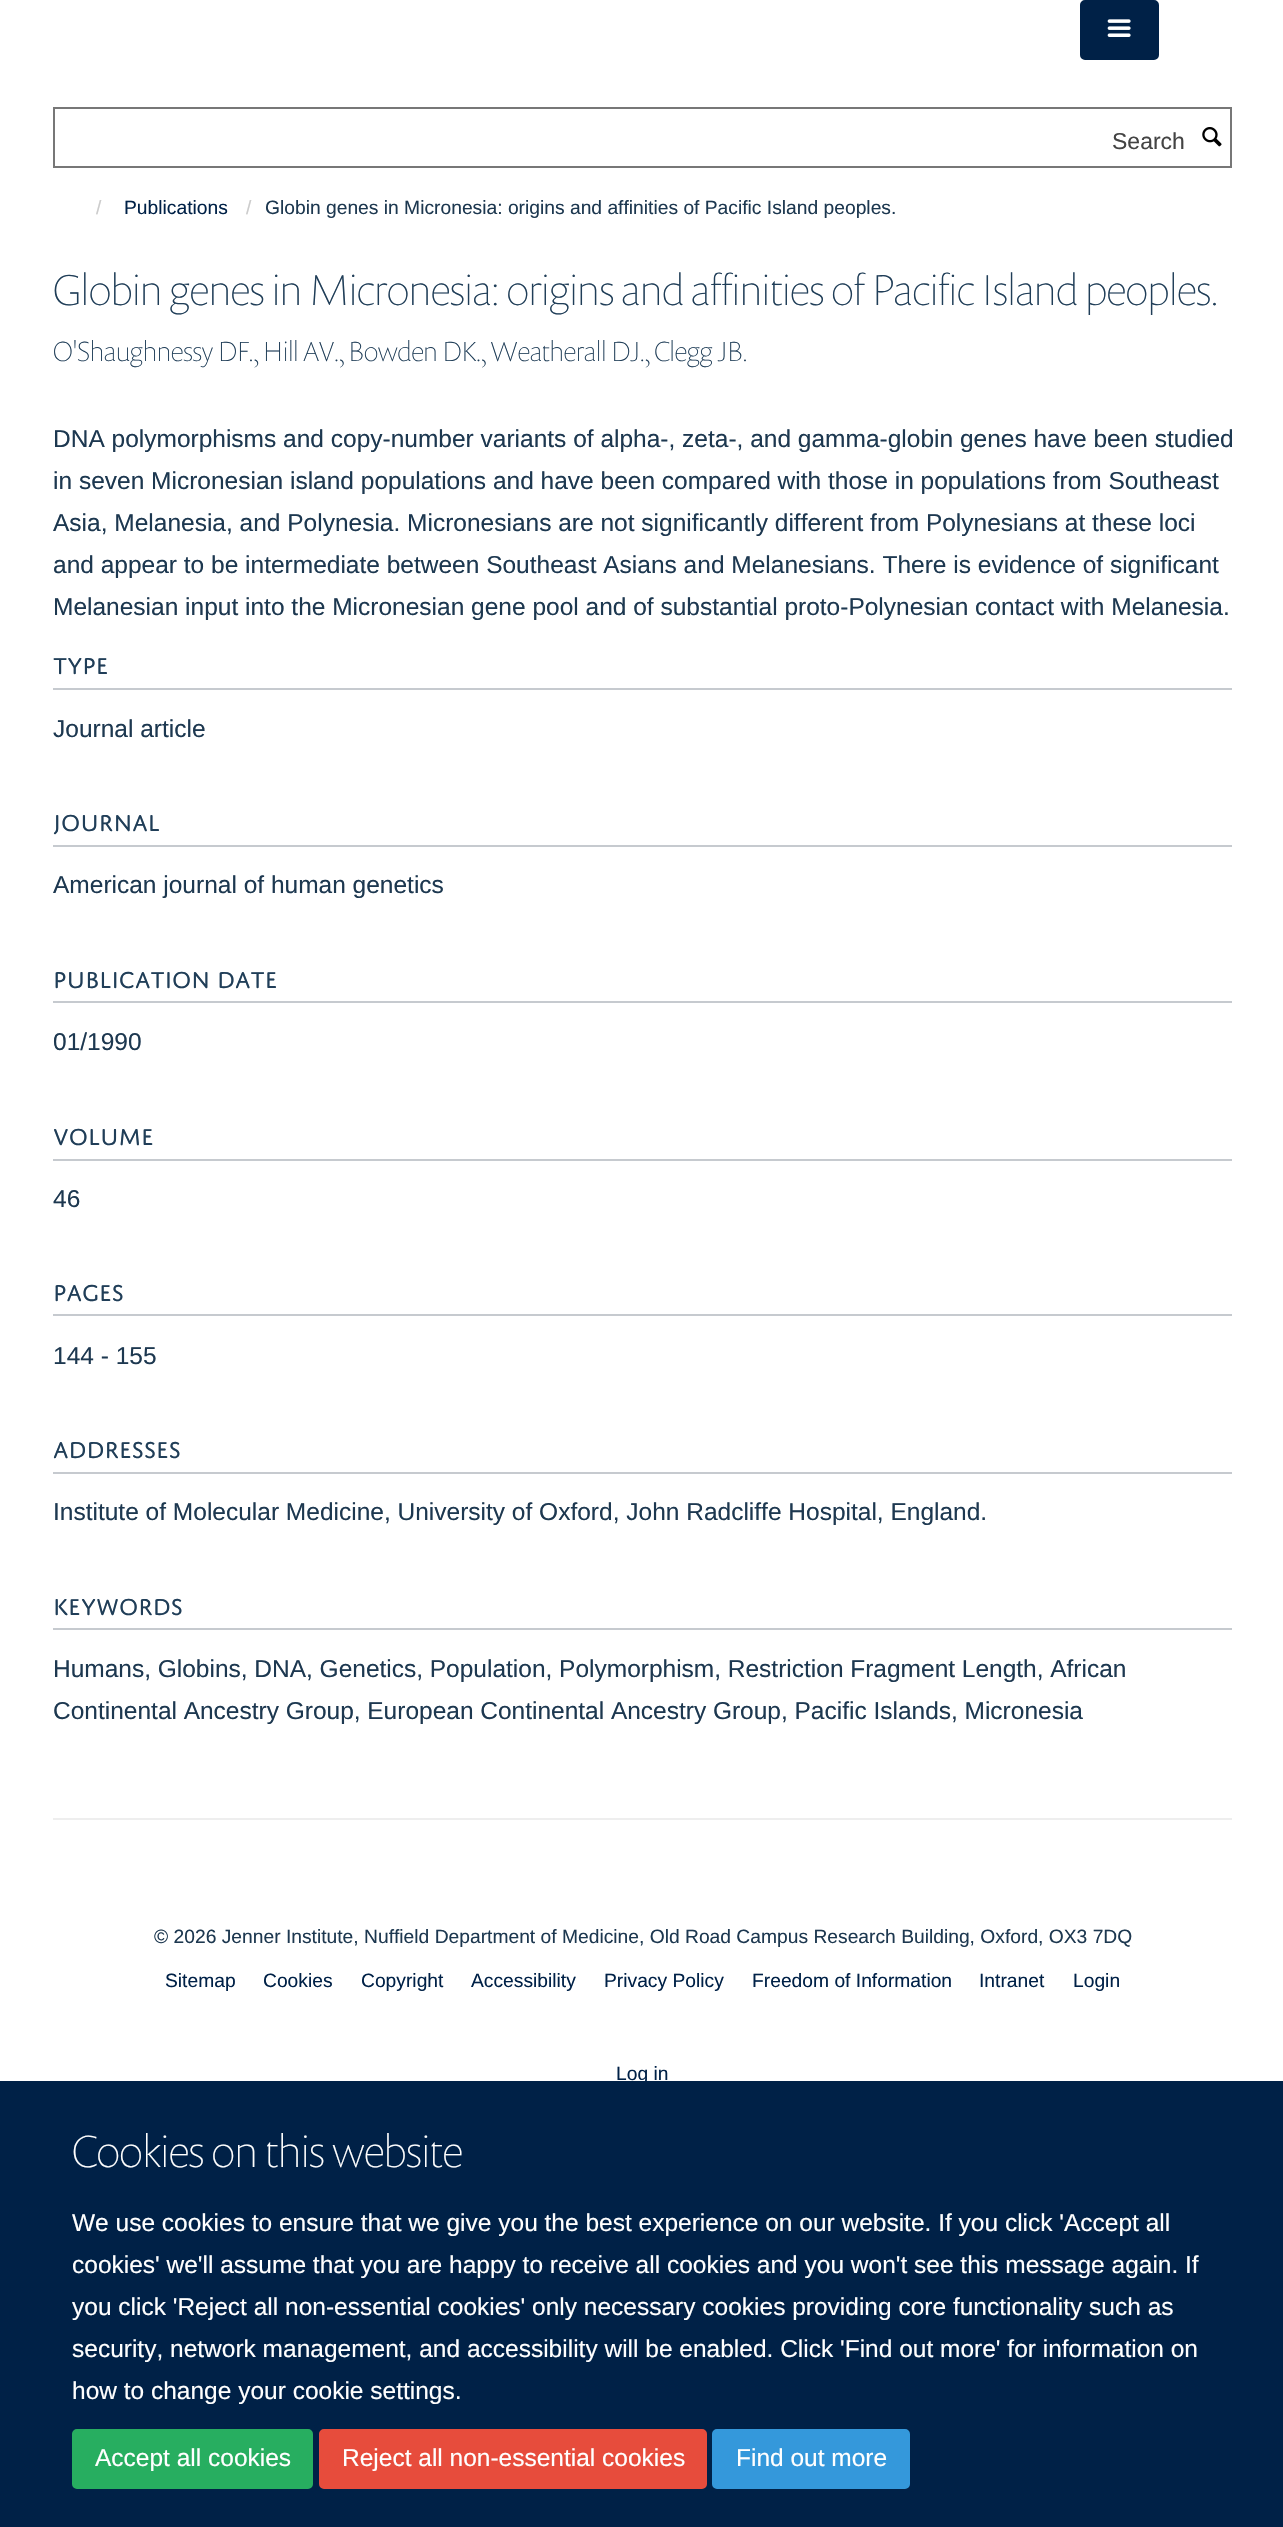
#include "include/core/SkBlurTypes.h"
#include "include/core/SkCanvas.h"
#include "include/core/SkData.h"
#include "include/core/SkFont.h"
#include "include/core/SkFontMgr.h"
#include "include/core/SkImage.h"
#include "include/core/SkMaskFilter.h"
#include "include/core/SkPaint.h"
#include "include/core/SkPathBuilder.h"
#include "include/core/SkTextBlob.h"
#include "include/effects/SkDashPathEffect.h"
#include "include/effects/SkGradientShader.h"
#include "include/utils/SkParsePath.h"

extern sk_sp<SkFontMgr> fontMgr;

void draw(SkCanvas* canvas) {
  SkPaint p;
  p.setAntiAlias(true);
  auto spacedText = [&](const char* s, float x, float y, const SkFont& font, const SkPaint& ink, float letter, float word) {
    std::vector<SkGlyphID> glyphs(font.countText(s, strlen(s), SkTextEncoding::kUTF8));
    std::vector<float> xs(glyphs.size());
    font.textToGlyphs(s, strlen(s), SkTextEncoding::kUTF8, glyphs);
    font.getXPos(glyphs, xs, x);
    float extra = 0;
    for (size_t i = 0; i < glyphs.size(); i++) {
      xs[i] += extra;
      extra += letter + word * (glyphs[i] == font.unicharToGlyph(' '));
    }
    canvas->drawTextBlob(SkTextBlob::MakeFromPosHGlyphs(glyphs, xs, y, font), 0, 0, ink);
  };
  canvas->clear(SK_ColorWHITE);
  p.setColor(SkColorSetRGB(0, 33, 71));
  canvas->drawRoundRect(SkRect::MakeLTRB(1081, 1, 1158, 59), 4, 4, p);
  p.setStyle(SkPaint::kStroke_Style);
  p.setStrokeWidth(2);
  canvas->drawRoundRect(SkRect::MakeLTRB(1081, 1, 1158, 59), 4, 4, p);
  canvas->drawImageRect(SkImages::DeferredFromEncodedData(SkData::MakeFromFileName("images/1.png")), SkRect::MakeLTRB(1107, 19, 1131, 37), SkSamplingOptions());
  p.setColor(SkColorSetRGB(119, 119, 119));
  canvas->drawRect(SkRect::MakeLTRB(54, 108, 1231, 167), p);
  canvas->drawImageRect(SkImages::DeferredFromEncodedData(SkData::MakeFromFileName("images/2.png")), SkRect::MakeLTRB(1202, 127, 1222, 147), SkSamplingOptions());
  p.setStyle(SkPaint::kFill_Style);
  p.setColor(SkColorSetRGB(198, 202, 207));
  canvas->drawRect(SkRect::MakeLTRB(53, 688, 1232, 690), p);
  canvas->drawRect(SkRect::MakeLTRB(53, 845, 1232, 847), p);
  canvas->drawRect(SkRect::MakeLTRB(53, 1001, 1232, 1003), p);
  canvas->drawRect(SkRect::MakeLTRB(53, 1159, 1232, 1161), p);
  canvas->drawRect(SkRect::MakeLTRB(53, 1314, 1232, 1316), p);
  canvas->drawRect(SkRect::MakeLTRB(53, 1472, 1232, 1474), p);
  canvas->drawRect(SkRect::MakeLTRB(53, 1628, 1232, 1630), p);
  p.setColor(SkColorSetRGB(238, 238, 238));
  canvas->drawRect(SkRect::MakeLTRB(53, 1818, 1232, 1820), p);
  p.setColor(SkColorSetRGB(0, 33, 71));
  canvas->drawRect(SkRect::MakeLTRB(0, 2081, 1283, 2527), p);
  p.setColor(SkColorSetRGB(39, 174, 96));
  canvas->drawRoundRect(SkRect::MakeLTRB(73, 2430, 312, 2488), 4, 4, p);
  p.setStyle(SkPaint::kStroke_Style);
  canvas->drawRoundRect(SkRect::MakeLTRB(73, 2430, 312, 2488), 4, 4, p);
  p.setStyle(SkPaint::kFill_Style);
  p.setColor(SkColorSetRGB(231, 76, 60));
  canvas->drawRoundRect(SkRect::MakeLTRB(320, 2430, 706, 2488), 4, 4, p);
  p.setStyle(SkPaint::kStroke_Style);
  canvas->drawRoundRect(SkRect::MakeLTRB(320, 2430, 706, 2488), 4, 4, p);
  p.setStyle(SkPaint::kFill_Style);
  p.setColor(SkColorSetRGB(52, 152, 219));
  canvas->drawRoundRect(SkRect::MakeLTRB(713, 2430, 909, 2488), 4, 4, p);
  p.setStyle(SkPaint::kStroke_Style);
  canvas->drawRoundRect(SkRect::MakeLTRB(713, 2430, 909, 2488), 4, 4, p);
  SkFont font1(fontMgr->matchFamilyStyle("Liberation Sans", SkFontStyle::Normal()), 23);
  font1.setSubpixel(true);
  p.setStyle(SkPaint::kFill_Style);
  p.setColor(SkColorSetRGB(68, 68, 68));
  canvas->drawString("Search", 1112, 149, font1, p);
  SkFont font2(fontMgr->matchFamilyStyle("Liberation Sans", SkFontStyle::Normal()), 19.25f);
  font2.setSubpixel(true);
  p.setColor(SkColorSetRGB(204, 204, 204));
  canvas->drawString("/", 96, 214, font2, p);
  p.setColor(SkColorSetRGB(0, 33, 71));
  canvas->drawString("Publications", 124, 214, font2, p);
  p.setColor(SkColorSetRGB(204, 204, 204));
  canvas->drawString("/", 246, 214, font2, p);
  p.setColor(SkColorSetRGB(29, 56, 80));
  canvas->drawString("Globin genes in Micronesia: origins and affinities of Pacific Island peoples.", 265, 214, font2, p);
  SkFont font3(fontMgr->matchFamilyStyle("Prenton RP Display", SkFontStyle(100, SkFontStyle::kNormal_Width, SkFontStyle::kUpright_Slant)), 43.75f);
  font3.setSubpixel(true);
  p.setColor(SkColorSetRGB(32, 62, 88));
  canvas->drawString("Globin genes in Micronesia: origins and affinities of Pacific Island peoples.", 53, 305, font3, p);
  SkFont font4(fontMgr->matchFamilyStyle("Prenton RP Display", SkFontStyle(100, SkFontStyle::kNormal_Width, SkFontStyle::kUpright_Slant)), 28);
  font4.setSubpixel(true);
  canvas->drawString("O'Shaughnessy DF., Hill AV., Bowden DK., Weatherall DJ., Clegg JB.", 53, 361, font4, p);
  SkFont font5(fontMgr->matchFamilyStyle("Liberation Sans", SkFontStyle::Normal()), 24.5f);
  font5.setSubpixel(true);
  p.setColor(SkColorSetRGB(29, 56, 80));
  canvas->drawString("DNA polymorphisms and copy-number variants of alpha-, zeta-, and gamma-globin genes have been studied", 53, 447, font5, p);
  canvas->drawString("in seven Micronesian island populations and have been compared with those in populations from Southeast", 53, 489, font5, p);
  canvas->drawString("Asia, Melanesia, and Polynesia. Micronesians are not significantly different from Polynesians at these loci", 53, 531, font5, p);
  canvas->drawString("and appear to be intermediate between Southeast Asians and Melanesians. There is evidence of significant", 53, 573, font5, p);
  canvas->drawString("Melanesian input into the Micronesian gene pool and of substantial proto-Polynesian contact with Melanesia.", 53, 615, font5, p);
  SkFont font6(fontMgr->matchFamilyStyle("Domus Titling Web", SkFontStyle::Normal()), 24.5f);
  font6.setSubpixel(true);
  p.setColor(SkColorSetRGB(32, 62, 88));
  canvas->drawString("TYPE", 53, 674, font6, p);
  p.setColor(SkColorSetRGB(29, 56, 80));
  canvas->drawString("Journal article", 53, 737, font5, p);
  p.setColor(SkColorSetRGB(32, 62, 88));
  canvas->drawString("JOURNAL", 53, 831, font6, p);
  p.setColor(SkColorSetRGB(29, 56, 80));
  canvas->drawString("American journal of human genetics", 53, 893, font5, p);
  p.setColor(SkColorSetRGB(32, 62, 88));
  canvas->drawString("PUBLICATION DATE", 53, 988, font6, p);
  p.setColor(SkColorSetRGB(29, 56, 80));
  canvas->drawString("01/1990", 53, 1050, font5, p);
  p.setColor(SkColorSetRGB(32, 62, 88));
  canvas->drawString("VOLUME", 53, 1145, font6, p);
  p.setColor(SkColorSetRGB(29, 56, 80));
  canvas->drawString("46", 53, 1207, font5, p);
  p.setColor(SkColorSetRGB(32, 62, 88));
  canvas->drawString("PAGES", 53, 1301, font6, p);
  p.setColor(SkColorSetRGB(29, 56, 80));
  canvas->drawString("144 - 155", 53, 1364, font5, p);
  p.setColor(SkColorSetRGB(32, 62, 88));
  canvas->drawString("ADDRESSES", 53, 1458, font6, p);
  p.setColor(SkColorSetRGB(29, 56, 80));
  canvas->drawString("Institute of Molecular Medicine, University of Oxford, John Radcliffe Hospital, England.", 53, 1520, font5, p);
  p.setColor(SkColorSetRGB(32, 62, 88));
  canvas->drawString("KEYWORDS", 53, 1615, font6, p);
  p.setColor(SkColorSetRGB(29, 56, 80));
  spacedText("Humans, Globins, DNA, Genetics, Population, Polymorphism, Restriction Fragment Length, African", 53, 1677, font5, p, 0, -0.1f);
  spacedText("Continental Ancestry Group, European Continental Ancestry Group, Pacific Islands, Micronesia", 53, 1719, font5, p, 0, -0.1f);
  canvas->drawString("© 2026 Jenner Institute, Nuffield Department of Medicine, Old Road Campus Research Building, Oxford, OX3 7DQ", 154, 1943, font2, p);
  p.setColor(SkColorSetRGB(0, 33, 71));
  canvas->drawString("Sitemap", 165, 1987, font2, p);
  canvas->drawString("Cookies", 263, 1987, font2, p);
  canvas->drawString("Copyright", 361, 1987, font2, p);
  canvas->drawString("Accessibility", 471, 1987, font2, p);
  canvas->drawString("Privacy Policy", 604, 1987, font2, p);
  canvas->drawString("Freedom of Information", 752, 1987, font2, p);
  canvas->drawString("Intranet", 979, 1987, font2, p);
  canvas->drawString("Login", 1073, 1987, font2, p);
  canvas->drawString("Log in", 616, 2080, font2, p);
  SkFont font7(fontMgr->matchFamilyStyle("Prenton RP Display", SkFontStyle(100, SkFontStyle::kNormal_Width, SkFontStyle::kUpright_Slant)), 45.5f);
  font7.setSubpixel(true);
  p.setColor(SK_ColorWHITE);
  canvas->drawString("Cookies on this website", 72, 2167, font7, p);
  canvas->drawString("We use cookies to ensure that we give you the best experience on our website. If you click 'Accept all", 72, 2231, font5, p);
  canvas->drawString("cookies' we'll assume that you are happy to receive all cookies and you won't see this message again. If", 72, 2273, font5, p);
  canvas->drawString("you click 'Reject all non-essential cookies' only necessary cookies providing core functionality such as", 72, 2315, font5, p);
  canvas->drawString("security, network management, and accessibility will be enabled. Click 'Find out more' for information on", 72, 2357, font5, p);
  canvas->drawString("how to change your cookie settings.", 72, 2399, font5, p);
  canvas->drawString("Accept all cookies", 95, 2466, font5, p);
  canvas->drawString("Reject all non-essential cookies", 342, 2466, font5, p);
  canvas->drawString("Find out more", 736, 2466, font5, p);
}
